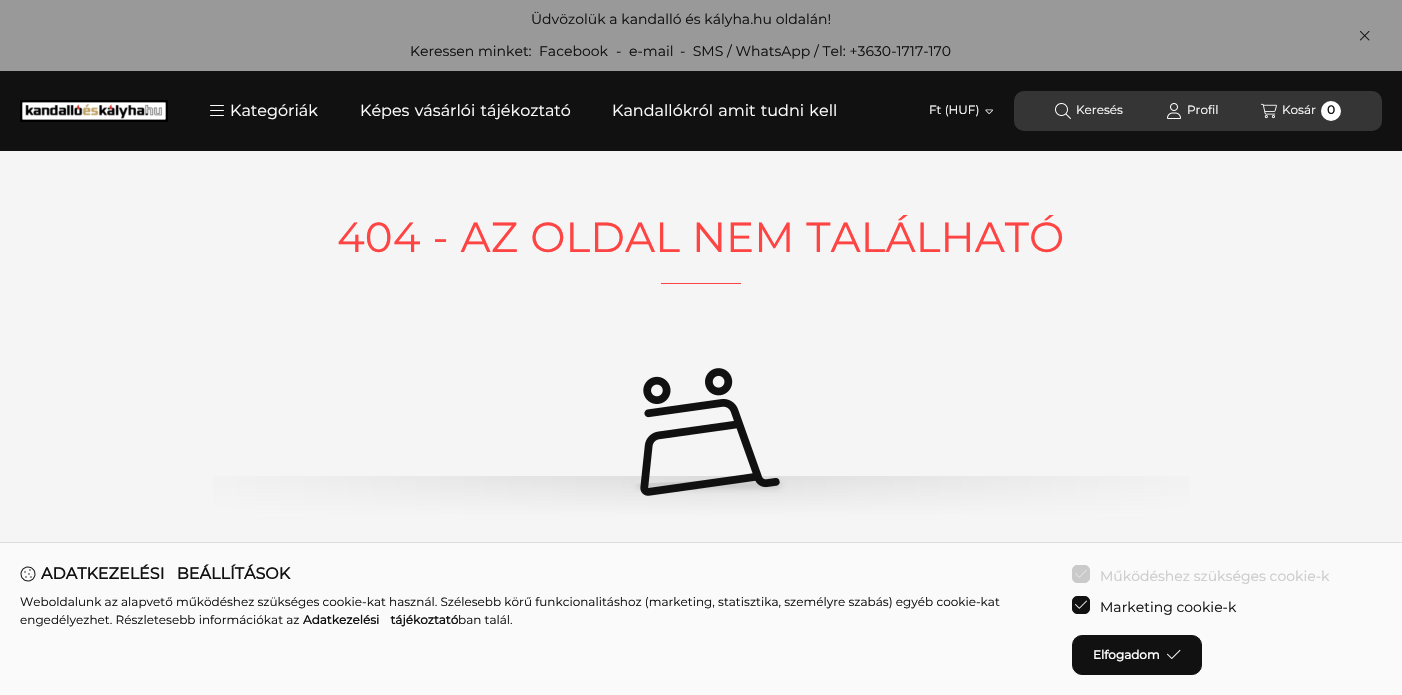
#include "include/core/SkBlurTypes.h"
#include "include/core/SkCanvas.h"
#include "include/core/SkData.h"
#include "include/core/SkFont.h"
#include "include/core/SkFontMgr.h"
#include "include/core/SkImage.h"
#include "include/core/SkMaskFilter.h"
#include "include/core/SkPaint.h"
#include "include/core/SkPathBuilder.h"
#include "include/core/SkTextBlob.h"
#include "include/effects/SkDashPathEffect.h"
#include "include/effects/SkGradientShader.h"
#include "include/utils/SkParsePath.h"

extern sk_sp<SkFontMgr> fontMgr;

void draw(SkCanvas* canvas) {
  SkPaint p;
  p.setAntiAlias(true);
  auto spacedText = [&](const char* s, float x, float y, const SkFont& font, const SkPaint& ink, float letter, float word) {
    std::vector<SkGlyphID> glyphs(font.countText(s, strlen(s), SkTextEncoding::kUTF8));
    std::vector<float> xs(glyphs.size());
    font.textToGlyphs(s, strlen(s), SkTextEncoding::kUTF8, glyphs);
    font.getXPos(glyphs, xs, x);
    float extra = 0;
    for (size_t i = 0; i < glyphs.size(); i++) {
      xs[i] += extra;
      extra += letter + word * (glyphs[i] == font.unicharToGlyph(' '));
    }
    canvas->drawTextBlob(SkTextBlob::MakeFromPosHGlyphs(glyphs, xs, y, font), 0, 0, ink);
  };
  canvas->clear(SkColorSetRGB(245, 245, 245));
  p.setColor(SkColorSetRGB(153, 153, 153));
  canvas->drawRect(SkRect::MakeLTRB(0, 0, 1402, 71), p);
  canvas->drawImageRect(SkImages::DeferredFromEncodedData(SkData::MakeFromFileName("images/1.png")), SkRect::MakeLTRB(1359, 30, 1370, 41), SkSamplingOptions());
  p.setColor(SkColorSetRGB(17, 17, 17));
  canvas->drawRect(SkRect::MakeLTRB(0, 71, 1402, 151), p);
  canvas->drawImageRect(SkImages::DeferredFromEncodedData(SkData::MakeFromFileName("images/2.png")), SkRect::MakeLTRB(20, 100, 168, 122), SkSamplingOptions());
  canvas->drawImageRect(SkImages::DeferredFromEncodedData(SkData::MakeFromFileName("images/3.png")), SkRect::MakeLTRB(210, 105, 224, 116), SkSamplingOptions());
  canvas->drawImageRect(SkImages::DeferredFromEncodedData(SkData::MakeFromFileName("images/4.png")), SkRect::MakeLTRB(985, 109, 993, 114), SkSamplingOptions());
  p.setColor(SkColorSetRGB(53, 53, 53));
  canvas->drawRoundRect(SkRect::MakeLTRB(1014, 91, 1382, 131), 10, 10, p);
  canvas->drawImageRect(SkImages::DeferredFromEncodedData(SkData::MakeFromFileName("images/5.png")), SkRect::MakeLTRB(1055, 103, 1071, 119), SkSamplingOptions());
  canvas->drawImageRect(SkImages::DeferredFromEncodedData(SkData::MakeFromFileName("images/6.png")), SkRect::MakeLTRB(1167, 103, 1181, 119), SkSamplingOptions());
  canvas->drawImageRect(SkImages::DeferredFromEncodedData(SkData::MakeFromFileName("images/7.png")), SkRect::MakeLTRB(1261, 103, 1277, 119), SkSamplingOptions());
  p.setColor(SK_ColorWHITE);
  canvas->drawCircle(1331, 111, 10, p);
  p.setColor(SkColorSetRGB(255, 68, 68));
  canvas->drawRect(SkRect::MakeLTRB(661, 283, 741, 284), p);
  {
    const SkColor colors[] = {SkColorSetRGB(245, 245, 245), SkColorSetRGB(221, 221, 221), SkColorSetRGB(245, 245, 245)};
    const float stops[] = {0.1f, 0.5f, 0.9f};
    const SkPoint ends[] = {{20, 497}, {1382, 497}};
    p.setShader(SkGradientShader::MakeLinear(ends, colors, stops, 3, SkTileMode::kClamp));
    p.setAlpha(255);
  }
  canvas->drawRect(SkRect::MakeLTRB(213, 476, 1189, 518), p);
  {
    const SkColor colors[] = {SkColorSetRGB(245, 245, 245), SkColorSetARGB(0, 245, 245, 245)};
    const float stops[] = {0, 1};
    const SkPoint ends[] = {{701, 518}, {701, 476}};
    p.setShader(SkGradientShader::MakeLinear(ends, colors, stops, 2, SkTileMode::kClamp));
    p.setAlpha(255);
  }
  canvas->drawRect(SkRect::MakeLTRB(213, 480, 1189, 518), p);
  canvas->save();
  canvas->clipPath(SkPathBuilder(SkPathFillType::kEvenOdd).moveTo(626, 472).lineTo(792, 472).lineTo(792, 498).lineTo(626, 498).close().moveTo(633.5f, 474).lineTo(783.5f, 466).lineTo(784, 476).lineTo(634, 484).close().detach(), true);
  p.setShader(nullptr);
  p.setColor(SkColorSetRGB(128, 128, 128));
  p.setMaskFilter(SkMaskFilter::MakeBlur(kNormal_SkBlurStyle, 3.5f));
  canvas->drawRect(SkRect::MakeLTRB(638, 484, 780, 486), p);
  p.setMaskFilter(nullptr);
  canvas->restore();
  canvas->drawImageRect(SkImages::DeferredFromEncodedData(SkData::MakeFromFileName("images/8.png")), SkRect::MakeLTRB(640, 368, 780, 496), SkSamplingOptions());
  p.setColor(SkColorSetRGB(250, 250, 250));
  canvas->drawRect(SkRect::MakeLTRB(0, 543, 1402, 695), p);
  p.setColor(SkColorSetRGB(221, 221, 221));
  canvas->drawRect(SkRect::MakeLTRB(0, 542, 1402, 543), p);
  canvas->drawImageRect(SkImages::DeferredFromEncodedData(SkData::MakeFromFileName("images/9.png")), SkRect::MakeLTRB(20, 566, 36, 582), SkSamplingOptions());
  p.setColor(SkColorSetRGB(202, 202, 202));
  canvas->drawRoundRect(SkRect::MakeLTRB(1072.5f, 565.5f, 1089.5f, 582.5f), 4.5f, 4.5f, p);
  p.setStyle(SkPaint::kStroke_Style);
  p.setStrokeWidth(1);
  canvas->drawRoundRect(SkRect::MakeLTRB(1072.5f, 565.5f, 1089.5f, 582.5f), 4.5f, 4.5f, p);
  canvas->drawImageRect(SkImages::DeferredFromEncodedData(SkData::MakeFromFileName("images/10.png")), SkRect::MakeLTRB(1075, 569, 1087, 578), SkSamplingOptions());
  p.setStyle(SkPaint::kFill_Style);
  p.setColor(SkColorSetRGB(17, 17, 17));
  canvas->drawRoundRect(SkRect::MakeLTRB(1072.5f, 596.5f, 1089.5f, 613.5f), 4.5f, 4.5f, p);
  p.setStyle(SkPaint::kStroke_Style);
  canvas->drawRoundRect(SkRect::MakeLTRB(1072.5f, 596.5f, 1089.5f, 613.5f), 4.5f, 4.5f, p);
  canvas->drawImageRect(SkImages::DeferredFromEncodedData(SkData::MakeFromFileName("images/11.png")), SkRect::MakeLTRB(1075, 600, 1087, 609), SkSamplingOptions());
  p.setStyle(SkPaint::kFill_Style);
  canvas->drawRoundRect(SkRect::MakeLTRB(1072.5f, 635.5f, 1201.5f, 674.5f), 9.5f, 9.5f, p);
  p.setStyle(SkPaint::kStroke_Style);
  canvas->drawRoundRect(SkRect::MakeLTRB(1072.5f, 635.5f, 1201.5f, 674.5f), 9.5f, 9.5f, p);
  canvas->drawImageRect(SkImages::DeferredFromEncodedData(SkData::MakeFromFileName("images/12.png")), SkRect::MakeLTRB(1167, 649, 1181, 659), SkSamplingOptions());
  SkFont font1(fontMgr->matchFamilyStyle("Montserrat", SkFontStyle::Normal()), 14);
  font1.setSubpixel(true);
  p.setStyle(SkPaint::kFill_Style);
  canvas->drawString("Üdvözolük a kandalló és kályha.hu oldalán!", 531, 24, font1, p);
  canvas->drawString("Keressen minket:", 410, 56, font1, p);
  canvas->drawString("Facebook", 539, 56, font1, p);
  canvas->drawString("-", 616, 56, font1, p);
  canvas->drawString("e-mail", 629, 56, font1, p);
  canvas->drawString("-  SMS / WhatsApp / Tel: +3630-1717-170", 680, 56, font1, p);
  SkFont font2(fontMgr->matchFamilyStyle("Montserrat", SkFontStyle::Normal()), 16);
  font2.setSubpixel(true);
  p.setColor(SK_ColorWHITE);
  canvas->drawString("Kategóriák", 230, 116, font2, p);
  spacedText("Képes vásárlói tájékoztató", 360, 116, font2, p, 0, 1);
  spacedText("Kandallókról amit tudni kell", 612, 116, font2, p, 0, 1);
  SkFont font3(fontMgr->matchFamilyStyle("Montserrat", SkFontStyle::Normal()), 12);
  font3.setSubpixel(true);
  canvas->drawString("Ft (HUF)", 929, 114, font3, p);
  canvas->drawString("Keresés", 1076, 114, font3, p);
  canvas->drawString("Profil", 1187, 114, font3, p);
  canvas->drawString("Kosár", 1282, 114, font3, p);
  SkFont font4(fontMgr->matchFamilyStyle("Montserrat", SkFontStyle::Bold()), 12);
  font4.setSubpixel(true);
  p.setColor(SkColorSetRGB(17, 17, 17));
  canvas->drawString("0", 1327, 114, font4, p);
  SkFont font5(fontMgr->matchFamilyStyle("Montserrat", SkFontStyle::Normal()), 42);
  font5.setSubpixel(true);
  p.setColor(SkColorSetRGB(255, 68, 68));
  spacedText("404 - AZ OLDAL NEM TALÁLHATÓ", 337, 252, font5, p, 0, 1);
  SkFont font6(fontMgr->matchFamilyStyle("Montserrat", SkFontStyle::Bold()), 16);
  font6.setSubpixel(true);
  p.setColor(SkColorSetRGB(17, 17, 17));
  spacedText("ADATKEZELÉSI BEÁLLÍTÁSOK", 41, 579, font6, p, 0, 8);
  canvas->drawString("Weboldalunk az alapvető működéshez szükséges cookie-kat használ. Szélesebb körű funkcionalitáshoz (marketing, statisztika, személyre szabás) egyéb cookie-kat", 20, 606, font3, p);
  canvas->drawString("engedélyezhet. Részletesebb információkat az", 20, 624, font3, p);
  spacedText("Adatkezelési tájékoztató", 303, 624, font4, p, 0, 8);
  canvas->drawString("ban talál.", 458, 624, font3, p);
  p.setColor(SkColorSetRGB(202, 202, 202));
  canvas->drawString("Működéshez szükséges cookie-k", 1100, 581, font1, p);
  p.setColor(SkColorSetRGB(17, 17, 17));
  canvas->drawString("Marketing cookie-k", 1100, 612, font1, p);
  p.setColor(SK_ColorWHITE);
  canvas->drawString("Elfogadom", 1093, 659, font4, p);
}
